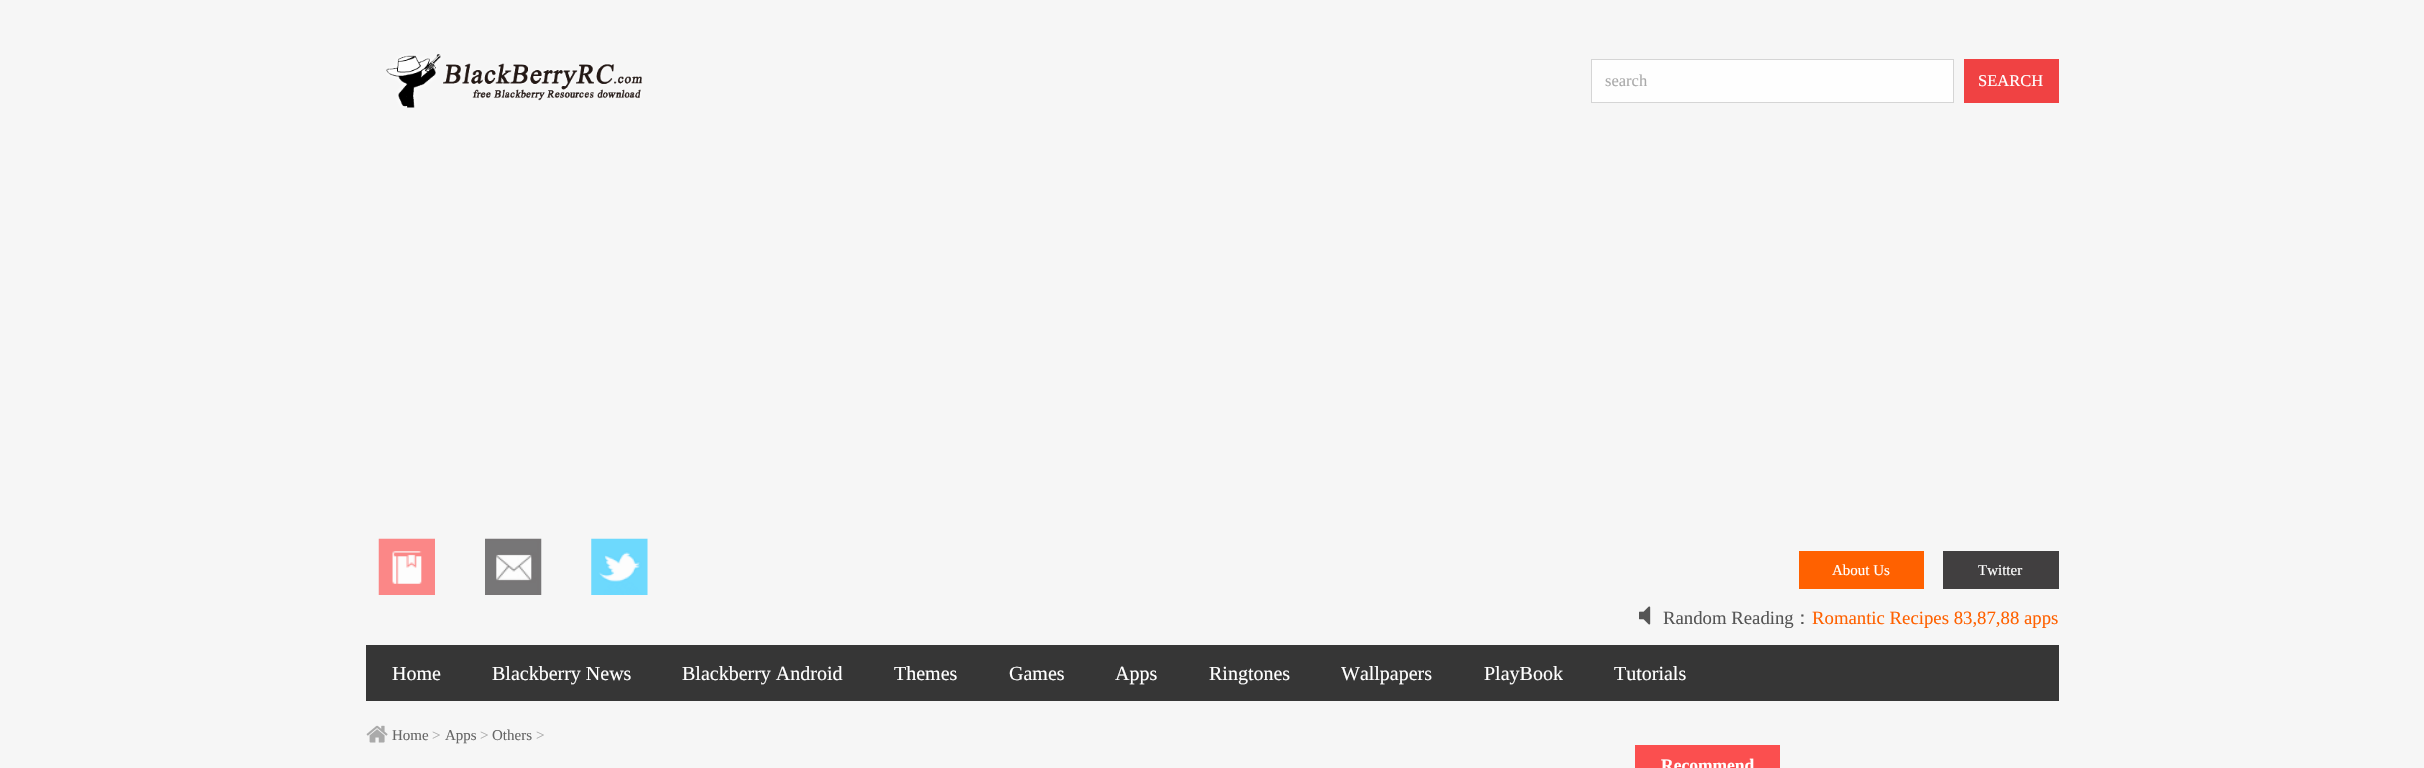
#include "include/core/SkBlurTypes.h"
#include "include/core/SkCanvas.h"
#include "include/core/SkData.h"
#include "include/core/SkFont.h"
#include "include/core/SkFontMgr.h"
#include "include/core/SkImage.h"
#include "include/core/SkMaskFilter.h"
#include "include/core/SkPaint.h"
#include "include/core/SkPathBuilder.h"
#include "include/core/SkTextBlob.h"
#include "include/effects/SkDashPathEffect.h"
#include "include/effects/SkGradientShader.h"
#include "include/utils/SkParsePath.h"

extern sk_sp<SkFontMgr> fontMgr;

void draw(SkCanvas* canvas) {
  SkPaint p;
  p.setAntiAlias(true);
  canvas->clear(SkColorSetRGB(246, 246, 246));
  canvas->drawImageRect(SkImages::DeferredFromEncodedData(SkData::MakeFromFileName("images/1.png")), SkRect::MakeLTRB(386, 54, 643, 108), SkSamplingOptions());
  p.setColor(SkColorSetRGB(254, 254, 254));
  canvas->drawRect(SkRect::MakeLTRB(1591.5f, 59.5f, 1953.5f, 102.5f), p);
  p.setStyle(SkPaint::kStroke_Style);
  p.setStrokeWidth(1);
  p.setColor(SkColorSetRGB(213, 213, 213));
  canvas->drawRect(SkRect::MakeLTRB(1591.5f, 59.5f, 1953.5f, 102.5f), p);
  p.setStyle(SkPaint::kFill_Style);
  p.setColor(SkColorSetRGB(240, 66, 67));
  canvas->drawRect(SkRect::MakeLTRB(1964, 59, 2059, 103), p);
  canvas->drawImageRect(SkImages::DeferredFromEncodedData(SkData::MakeFromFileName("images/2.png")), SkRect::MakeLTRB(378, 538, 435, 595), SkSamplingOptions());
  canvas->drawImageRect(SkImages::DeferredFromEncodedData(SkData::MakeFromFileName("images/3.png")), SkRect::MakeLTRB(485, 538, 542, 595), SkSamplingOptions());
  canvas->drawImageRect(SkImages::DeferredFromEncodedData(SkData::MakeFromFileName("images/4.png")), SkRect::MakeLTRB(591, 538, 648, 595), SkSamplingOptions());
  p.setColor(SkColorSetRGB(255, 97, 0));
  canvas->drawRect(SkRect::MakeLTRB(1799, 551, 1924, 589), p);
  p.setColor(SkColorSetRGB(65, 63, 64));
  canvas->drawRect(SkRect::MakeLTRB(1943, 551, 2059, 589), p);
  canvas->drawImageRect(SkImages::DeferredFromEncodedData(SkData::MakeFromFileName("images/5.png")), SkRect::MakeLTRB(1639, 606, 1651, 625), SkSamplingOptions());
  p.setColor(SkColorSetRGB(54, 54, 54));
  canvas->drawRect(SkRect::MakeLTRB(366, 645, 2059, 701), p);
  canvas->drawImageRect(SkImages::DeferredFromEncodedData(SkData::MakeFromFileName("images/6.png")), SkRect::MakeLTRB(366, 725, 388, 743), SkSamplingOptions());
  p.setColor(SkColorSetRGB(251, 79, 79));
  canvas->drawRect(SkRect::MakeLTRB(1635, 745, 1780, 768), p);
  SkFont font1(fontMgr->matchFamilyStyle("Liberation Serif", SkFontStyle::Normal()), 16.5f);
  font1.setSubpixel(true);
  p.setColor(SkColorSetRGB(170, 170, 170));
  canvas->drawString("search", 1605, 86, font1, p);
  p.setColor(SK_ColorWHITE);
  canvas->drawString("SEARCH", 1978, 86, font1, p);
  SkFont font2(fontMgr->matchFamilyStyle("Liberation Serif", SkFontStyle::Normal()), 15);
  font2.setSubpixel(true);
  canvas->drawString("About Us", 1832, 575, font2, p);
  canvas->drawString("Twitter", 1978, 575, font2, p);
  SkFont font3(fontMgr->matchFamilyStyle("Liberation Serif", SkFontStyle::Normal()), 18.75f);
  font3.setSubpixel(true);
  p.setColor(SkColorSetRGB(85, 85, 85));
  canvas->drawString("Random Reading", 1663, 624, font3, p);
  SkFont font4(fontMgr->matchFamilyStyle("WenQuanYi Zen Hei", SkFontStyle(500, SkFontStyle::kNormal_Width, SkFontStyle::kUpright_Slant)), 18.75f);
  font4.setSubpixel(true);
  canvas->drawString("：", 1793, 624, font4, p);
  p.setColor(SkColorSetRGB(255, 97, 0));
  canvas->drawString("Romantic Recipes 83,87,88 apps", 1812, 624, font3, p);
  SkFont font5(fontMgr->matchFamilyStyle("Liberation Serif", SkFontStyle::Normal()), 20);
  font5.setSubpixel(true);
  p.setColor(SK_ColorWHITE);
  canvas->drawString("Home", 392, 680, font5, p);
  canvas->drawString("Blackberry News", 492, 680, font5, p);
  canvas->drawString("Blackberry Android", 682, 680, font5, p);
  canvas->drawString("Themes", 894, 680, font5, p);
  canvas->drawString("Games", 1009, 680, font5, p);
  canvas->drawString("Apps", 1115, 680, font5, p);
  canvas->drawString("Ringtones", 1209, 680, font5, p);
  canvas->drawString("Wallpapers", 1341, 680, font5, p);
  canvas->drawString("PlayBook", 1484, 680, font5, p);
  canvas->drawString("Tutorials", 1614, 680, font5, p);
  p.setColor(SkColorSetRGB(102, 102, 102));
  canvas->drawString("Home", 392, 740, font2, p);
  p.setColor(SkColorSetRGB(170, 170, 170));
  canvas->drawString(">", 432, 740, font2, p);
  p.setColor(SkColorSetRGB(102, 102, 102));
  canvas->drawString("Apps", 445, 740, font2, p);
  p.setColor(SkColorSetRGB(170, 170, 170));
  canvas->drawString(">", 480, 740, font2, p);
  p.setColor(SkColorSetRGB(102, 102, 102));
  canvas->drawString("Others", 492, 740, font2, p);
  p.setColor(SkColorSetRGB(170, 170, 170));
  canvas->drawString(">", 536, 740, font2, p);
  SkFont font6(fontMgr->matchFamilyStyle("Liberation Serif", SkFontStyle::Bold()), 17.5f);
  font6.setSubpixel(true);
  p.setColor(SK_ColorWHITE);
  canvas->drawString("Recommend", 1661, 771, font6, p);
}
